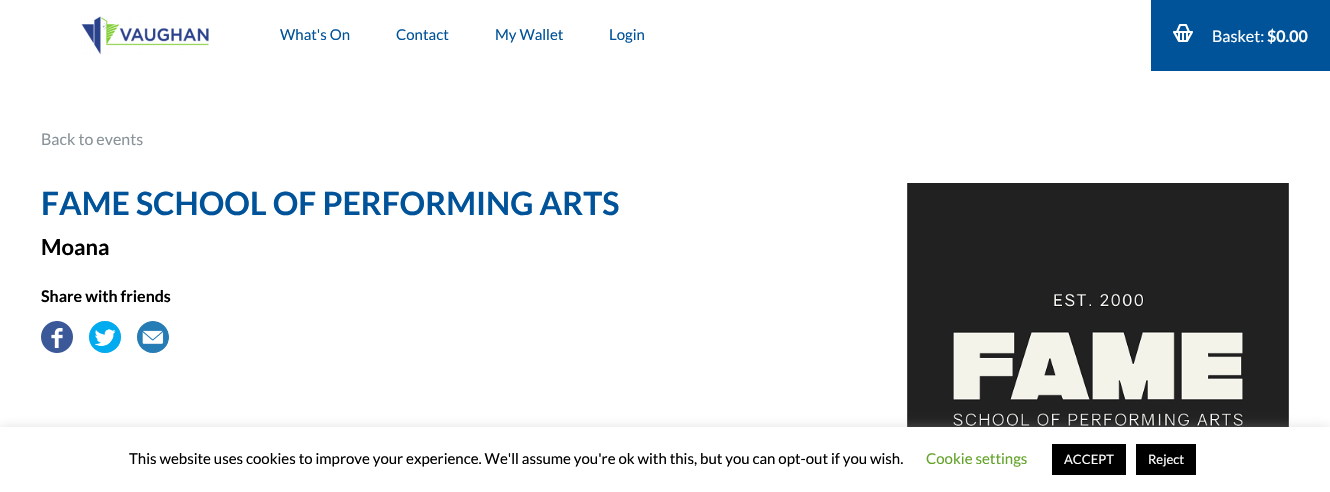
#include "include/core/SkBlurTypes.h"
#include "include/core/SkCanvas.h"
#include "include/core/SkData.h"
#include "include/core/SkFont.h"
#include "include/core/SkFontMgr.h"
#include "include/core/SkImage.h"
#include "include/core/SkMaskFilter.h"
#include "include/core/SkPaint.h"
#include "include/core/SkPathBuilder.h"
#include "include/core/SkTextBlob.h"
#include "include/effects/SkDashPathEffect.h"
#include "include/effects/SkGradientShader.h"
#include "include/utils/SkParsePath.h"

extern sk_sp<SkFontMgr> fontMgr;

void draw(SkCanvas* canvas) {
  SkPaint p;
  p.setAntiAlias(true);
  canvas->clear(SK_ColorWHITE);
  canvas->drawImageRect(SkImages::DeferredFromEncodedData(SkData::MakeFromFileName("images/1.png")), SkRect::MakeLTRB(81, 16, 209, 55), SkSamplingOptions());
  p.setColor(SkColorSetRGB(0, 83, 153));
  canvas->drawRect(SkRect::MakeLTRB(1151, 0, 1330, 71), p);
  canvas->drawImageRect(SkImages::DeferredFromEncodedData(SkData::MakeFromFileName("images/2.png")), SkRect::MakeLTRB(1173, 24, 1193, 42), SkSamplingOptions());
  canvas->drawImageRect(SkImages::DeferredFromEncodedData(SkData::MakeFromFileName("images/3.png")), SkRect::MakeLTRB(41, 321, 73, 353), SkSamplingOptions());
  canvas->drawImageRect(SkImages::DeferredFromEncodedData(SkData::MakeFromFileName("images/4.png")), SkRect::MakeLTRB(89, 321, 121, 353), SkSamplingOptions());
  canvas->drawImageRect(SkImages::DeferredFromEncodedData(SkData::MakeFromFileName("images/5.png")), SkRect::MakeLTRB(137, 321, 169, 353), SkSamplingOptions());
  canvas->drawImageRect(SkImages::DeferredFromEncodedData(SkData::MakeFromFileName("images/6.png")), SkRect::MakeLTRB(907, 183, 1289, 427), SkSamplingOptions());
  p.setColor(SkColorSetARGB(77, 172, 171, 171));
  p.setMaskFilter(SkMaskFilter::MakeBlur(kNormal_SkBlurStyle, 5));
  canvas->drawRect(SkRect::MakeLTRB(0, 426, 1330, 491), p);
  p.setMaskFilter(nullptr);
  p.setColor(SK_ColorWHITE);
  canvas->drawRect(SkRect::MakeLTRB(0, 427, 1330, 492), p);
  p.setColor(SK_ColorBLACK);
  canvas->drawRect(SkRect::MakeLTRB(1052, 444, 1126, 475), p);
  canvas->drawRect(SkRect::MakeLTRB(1136, 444, 1196, 475), p);
  SkFont font1(fontMgr->matchFamilyStyle("Lato", SkFontStyle::Normal()), 15);
  font1.setSubpixel(true);
  p.setColor(SkColorSetRGB(0, 83, 153));
  canvas->drawString("What's On", 280, 40, font1, p);
  canvas->drawString("Contact", 396, 40, font1, p);
  canvas->drawString("My Wallet", 495, 40, font1, p);
  canvas->drawString("Login", 609, 40, font1, p);
  SkFont font2(fontMgr->matchFamilyStyle("Lato", SkFontStyle::Normal()), 16);
  font2.setSubpixel(true);
  p.setColor(SK_ColorWHITE);
  canvas->drawString("Basket:", 1212, 42, font2, p);
  SkFont font3(fontMgr->matchFamilyStyle("Lato", SkFontStyle::Bold()), 16);
  font3.setSubpixel(true);
  canvas->drawString("$0.00", 1267, 42, font3, p);
  p.setColor(SkColorSetRGB(137, 147, 153));
  canvas->drawString("Back to events", 41, 145, font2, p);
  SkFont font4(fontMgr->matchFamilyStyle("Lato", SkFontStyle::Bold()), 32);
  font4.setSubpixel(true);
  p.setColor(SkColorSetRGB(0, 83, 153));
  canvas->drawString("FAME SCHOOL OF PERFORMING ARTS", 41, 215, font4, p);
  SkFont font5(fontMgr->matchFamilyStyle("Lato", SkFontStyle::Bold()), 22);
  font5.setSubpixel(true);
  p.setColor(SK_ColorBLACK);
  canvas->drawString("Moana", 41, 255, font5, p);
  canvas->drawString("Share with friends", 41, 302, font3, p);
  canvas->drawString("This website uses cookies to improve your experience. We'll assume you're ok with this, but you can opt-out if you wish.", 129, 464, font1, p);
  p.setColor(SkColorSetRGB(98, 163, 41));
  canvas->drawString("Cookie settings", 926, 464, font1, p);
  SkFont font6(fontMgr->matchFamilyStyle("Lato", SkFontStyle::Normal()), 13);
  font6.setSubpixel(true);
  p.setColor(SK_ColorWHITE);
  canvas->drawString("ACCEPT", 1064, 464, font6, p);
  canvas->drawString("Reject", 1148, 464, font6, p);
}
